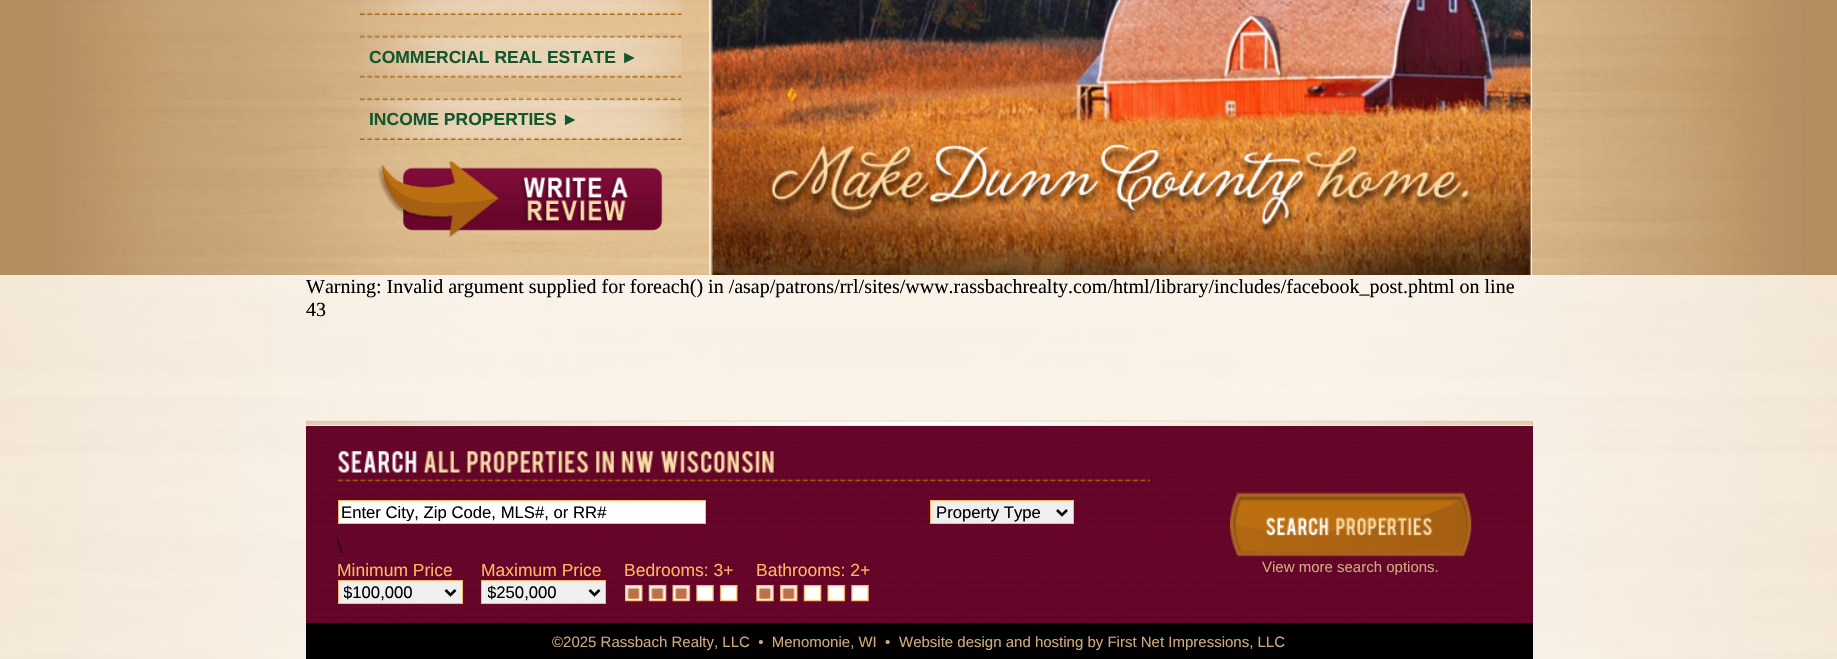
#include "include/core/SkBlurTypes.h"
#include "include/core/SkCanvas.h"
#include "include/core/SkData.h"
#include "include/core/SkFont.h"
#include "include/core/SkFontMgr.h"
#include "include/core/SkImage.h"
#include "include/core/SkMaskFilter.h"
#include "include/core/SkPaint.h"
#include "include/core/SkPathBuilder.h"
#include "include/core/SkTextBlob.h"
#include "include/effects/SkDashPathEffect.h"
#include "include/effects/SkGradientShader.h"
#include "include/utils/SkParsePath.h"

extern sk_sp<SkFontMgr> fontMgr;

void draw(SkCanvas* canvas) {
  SkPaint p;
  p.setAntiAlias(true);
  canvas->clear(SkColorSetRGB(179, 140, 96));
  canvas->drawImageRect(SkImages::DeferredFromEncodedData(SkData::MakeFromFileName("images/1.png")), SkRect::MakeLTRB(49, 0, 1801, 275), SkSamplingOptions());
  canvas->drawImageRect(SkImages::DeferredFromEncodedData(SkData::MakeFromFileName("images/2.png")), SkRect::MakeLTRB(360, 0, 682, 15), SkSamplingOptions());
  canvas->drawImageRect(SkImages::DeferredFromEncodedData(SkData::MakeFromFileName("images/3.png")), SkRect::MakeLTRB(360, 35, 682, 78), SkSamplingOptions());
  canvas->drawImageRect(SkImages::DeferredFromEncodedData(SkData::MakeFromFileName("images/4.png")), SkRect::MakeLTRB(360, 97, 682, 140), SkSamplingOptions());
  canvas->drawImageRect(SkImages::DeferredFromEncodedData(SkData::MakeFromFileName("images/5.png")), SkRect::MakeLTRB(378, 161, 663, 238), SkSamplingOptions());
  p.setColor(SkColorSetRGB(248, 238, 224));
  canvas->drawRect(SkRect::MakeLTRB(709, 0, 710, 275), p);
  canvas->drawImageRect(SkImages::DeferredFromEncodedData(SkData::MakeFromFileName("images/6.png")), SkRect::MakeLTRB(710, 0, 1531, 275), SkSamplingOptions());
  canvas->drawRect(SkRect::MakeLTRB(1531, 0, 1532, 275), p);
  canvas->drawImageRect(SkImages::DeferredFromEncodedData(SkData::MakeFromFileName("images/7.png")), SkRect::MakeLTRB(0, 275, 1837, 659), SkSamplingOptions());
  p.setColor(SkColorSetRGB(243, 234, 220));
  canvas->drawRect(SkRect::MakeLTRB(306, 420, 1533, 421), p);
  p.setColor(SkColorSetRGB(208, 177, 137));
  canvas->drawRect(SkRect::MakeLTRB(306, 421, 1533, 425), p);
  canvas->drawImageRect(SkImages::DeferredFromEncodedData(SkData::MakeFromFileName("images/8.png")), SkRect::MakeLTRB(306, 421, 1533, 425), SkSamplingOptions());
  p.setColor(SkColorSetRGB(243, 234, 220));
  canvas->drawRect(SkRect::MakeLTRB(306, 425, 1533, 426), p);
  p.setColor(SkColorSetRGB(95, 5, 39));
  canvas->drawRect(SkRect::MakeLTRB(306, 426, 1533, 623), p);
  canvas->drawImageRect(SkImages::DeferredFromEncodedData(SkData::MakeFromFileName("images/9.png")), SkRect::MakeLTRB(306, 426, 1533, 623), SkSamplingOptions());
  canvas->drawImageRect(SkImages::DeferredFromEncodedData(SkData::MakeFromFileName("images/10.png")), SkRect::MakeLTRB(337, 451, 774, 473), SkSamplingOptions());
  canvas->drawImageRect(SkImages::DeferredFromEncodedData(SkData::MakeFromFileName("images/11.png")), SkRect::MakeLTRB(337, 478, 1150, 482), SkSamplingOptions());
  p.setColor(SK_ColorWHITE);
  canvas->drawRect(SkRect::MakeLTRB(338.5f, 500.5f, 705.5f, 523.5f), p);
  p.setStyle(SkPaint::kStroke_Style);
  p.setStrokeWidth(1);
  p.setColor(SkColorSetRGB(252, 183, 98));
  canvas->drawRect(SkRect::MakeLTRB(338.5f, 500.5f, 705.5f, 523.5f), p);
  p.setStyle(SkPaint::kFill_Style);
  p.setColor(SkColorSetRGB(239, 239, 239));
  canvas->drawRect(SkRect::MakeLTRB(930.5f, 500.5f, 1073.5f, 523.5f), p);
  p.setStyle(SkPaint::kStroke_Style);
  p.setColor(SkColorSetRGB(252, 183, 98));
  canvas->drawRect(SkRect::MakeLTRB(930.5f, 500.5f, 1073.5f, 523.5f), p);
  p.setStrokeWidth(2.5f);
  p.setColor(SK_ColorBLACK);
  canvas->drawPath(SkPathBuilder().moveTo(1057, 510).lineTo(1062, 515).lineTo(1067, 510).detach(), p);
  p.setStyle(SkPaint::kFill_Style);
  p.setColor(SkColorSetRGB(239, 239, 239));
  canvas->drawRect(SkRect::MakeLTRB(338.5f, 580.5f, 462.5f, 603.5f), p);
  p.setStyle(SkPaint::kStroke_Style);
  p.setStrokeWidth(1);
  p.setColor(SkColorSetRGB(252, 183, 98));
  canvas->drawRect(SkRect::MakeLTRB(338.5f, 580.5f, 462.5f, 603.5f), p);
  p.setStrokeWidth(2.5f);
  p.setColor(SK_ColorBLACK);
  canvas->drawPath(SkPathBuilder().moveTo(445.5f, 590).lineTo(450.5f, 595).lineTo(455.5f, 590).detach(), p);
  p.setStyle(SkPaint::kFill_Style);
  p.setColor(SkColorSetRGB(239, 239, 239));
  canvas->drawRect(SkRect::MakeLTRB(481.5f, 580.5f, 605.5f, 603.5f), p);
  p.setStyle(SkPaint::kStroke_Style);
  p.setStrokeWidth(1);
  p.setColor(SkColorSetRGB(252, 183, 98));
  canvas->drawRect(SkRect::MakeLTRB(481.5f, 580.5f, 605.5f, 603.5f), p);
  p.setStrokeWidth(2.5f);
  p.setColor(SK_ColorBLACK);
  canvas->drawPath(SkPathBuilder().moveTo(589.5f, 590).lineTo(594.5f, 595).lineTo(599.5f, 590).detach(), p);
  canvas->drawImageRect(SkImages::DeferredFromEncodedData(SkData::MakeFromFileName("images/12.png")), SkRect::MakeLTRB(625, 585, 738, 602), SkSamplingOptions());
  canvas->drawImageRect(SkImages::DeferredFromEncodedData(SkData::MakeFromFileName("images/13.png")), SkRect::MakeLTRB(756, 585, 869, 602), SkSamplingOptions());
  canvas->drawImageRect(SkImages::DeferredFromEncodedData(SkData::MakeFromFileName("images/14.png")), SkRect::MakeLTRB(1230, 492, 1472, 557), SkSamplingOptions());
  p.setStyle(SkPaint::kFill_Style);
  canvas->drawRect(SkRect::MakeLTRB(306, 623, 1533, 659), p);
  SkFont font1(fontMgr->matchFamilyStyle("Liberation Sans", SkFontStyle::Bold()), 17.5f);
  font1.setSubpixel(true);
  p.setColor(SkColorSetRGB(19, 87, 44));
  canvas->drawString("COMMERCIAL REAL ESTATE ►", 369, 63, font1, p);
  canvas->drawString("INCOME PROPERTIES ►", 369, 125, font1, p);
  SkFont font2(fontMgr->matchFamilyStyle("Liberation Serif", SkFontStyle::Normal()), 20);
  font2.setSubpixel(true);
  p.setColor(SK_ColorBLACK);
  canvas->drawString("Warning: Invalid argument supplied for foreach() in /asap/patrons/rrl/sites/www.rassbachrealty.com/html/library/includes/facebook_post.phtml on line", 306, 293, font2, p);
  canvas->drawString("43", 306, 316, font2, p);
  canvas->save();
  canvas->clipRect(SkRect::MakeLTRB(341, 503, 703, 521));
  SkFont font3(fontMgr->matchFamilyStyle("Liberation Sans", SkFontStyle::Normal()), 16.7f);
  font3.setSubpixel(true);
  canvas->drawString("Enter City, Zip Code, MLS#, or RR#", 341, 518, font3, p);
  canvas->restore();
  canvas->drawString("Property Type", 936, 518, font3, p);
  canvas->drawString("\\", 337, 553, font2, p);
  SkFont font4(fontMgr->matchFamilyStyle("Liberation Sans", SkFontStyle::Normal()), 17.5f);
  font4.setSubpixel(true);
  p.setColor(SkColorSetRGB(252, 183, 98));
  canvas->drawString("Minimum Price", 337, 576, font4, p);
  canvas->save();
  canvas->clipRect(SkRect::MakeLTRB(344, 581, 441, 603));
  p.setColor(SK_ColorBLACK);
  canvas->drawString("$100,000", 343, 598, font3, p);
  canvas->restore();
  p.setColor(SkColorSetRGB(252, 183, 98));
  canvas->drawString("Maximum Price", 481, 576, font4, p);
  canvas->save();
  canvas->clipRect(SkRect::MakeLTRB(488, 581, 585, 603));
  p.setColor(SK_ColorBLACK);
  canvas->drawString("$250,000", 487, 598, font3, p);
  canvas->restore();
  p.setColor(SkColorSetRGB(252, 183, 98));
  canvas->drawString("Bedrooms: 3+", 624, 576, font4, p);
  canvas->drawString("Bathrooms: 2+", 756, 576, font4, p);
  SkFont font5(fontMgr->matchFamilyStyle("Liberation Sans", SkFontStyle::Normal()), 15);
  font5.setSubpixel(true);
  p.setColor(SkColorSetRGB(204, 170, 126));
  canvas->drawString("View more search options.", 1262, 572, font5, p);
  canvas->drawString("©2025 Rassbach Realty, LLC  •  Menomonie, WI  •", 552, 647, font5, p);
  canvas->drawString("Website design and hosting by First Net Impressions, LLC", 899, 647, font5, p);
}
